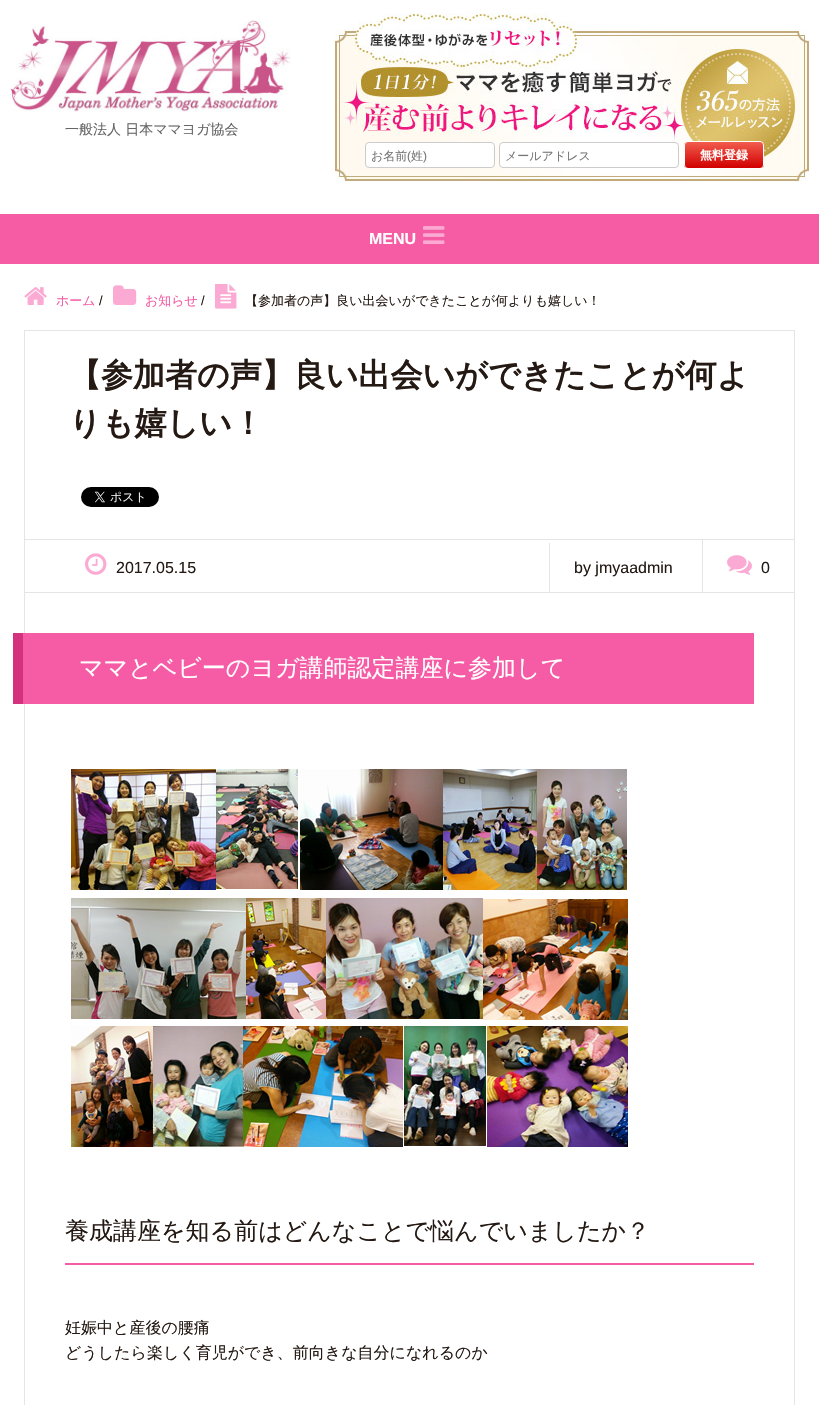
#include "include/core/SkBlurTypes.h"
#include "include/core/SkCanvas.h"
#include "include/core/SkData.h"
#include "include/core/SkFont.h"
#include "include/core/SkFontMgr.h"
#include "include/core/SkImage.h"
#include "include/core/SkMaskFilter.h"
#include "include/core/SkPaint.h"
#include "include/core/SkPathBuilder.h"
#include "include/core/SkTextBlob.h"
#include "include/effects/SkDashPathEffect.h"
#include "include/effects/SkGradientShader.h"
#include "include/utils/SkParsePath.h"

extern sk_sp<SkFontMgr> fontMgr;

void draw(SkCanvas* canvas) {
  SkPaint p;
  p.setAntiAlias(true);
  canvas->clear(SK_ColorWHITE);
  canvas->drawImageRect(SkImages::DeferredFromEncodedData(SkData::MakeFromFileName("images/1.png")), SkRect::MakeLTRB(10, 20, 291, 112), SkSamplingOptions());
  canvas->drawImageRect(SkImages::DeferredFromEncodedData(SkData::MakeFromFileName("images/2.png")), SkRect::MakeLTRB(335, 13, 809, 181), SkSamplingOptions());
  p.setColor(SK_ColorWHITE);
  canvas->drawRoundRect(SkRect::MakeLTRB(365.5f, 142.5f, 494.5f, 167.5f), 3.5f, 3.5f, p);
  p.setStyle(SkPaint::kStroke_Style);
  p.setStrokeWidth(1);
  p.setColor(SkColorSetRGB(204, 204, 204));
  canvas->drawRoundRect(SkRect::MakeLTRB(365.5f, 142.5f, 494.5f, 167.5f), 3.5f, 3.5f, p);
  p.setStyle(SkPaint::kFill_Style);
  p.setColor(SK_ColorWHITE);
  canvas->drawRoundRect(SkRect::MakeLTRB(499.5f, 142.5f, 678.5f, 167.5f), 3.5f, 3.5f, p);
  p.setStyle(SkPaint::kStroke_Style);
  p.setColor(SkColorSetRGB(204, 204, 204));
  canvas->drawRoundRect(SkRect::MakeLTRB(499.5f, 142.5f, 678.5f, 167.5f), 3.5f, 3.5f, p);
  canvas->save();
  canvas->clipPath(SkPathBuilder().moveTo(688, 141).lineTo(760, 141).cubicTo(762, 141, 764, 143, 764, 145).lineTo(764, 165).cubicTo(764, 167, 762, 169, 760, 169).lineTo(688, 169).cubicTo(686, 169, 684, 167, 684, 165).lineTo(684, 145).cubicTo(684, 143, 686, 141, 688, 141).close().detach(), true);
  p.setStyle(SkPaint::kFill_Style);
  {
    const SkColor colors[] = {SkColorSetRGB(208, 0, 0), SkColorSetRGB(242, 92, 77)};
    const float stops[] = {0, 1};
    const SkPoint ends[] = {{724, 168}, {724, 142}};
    p.setShader(SkGradientShader::MakeLinear(ends, colors, stops, 2, SkTileMode::kClamp));
    p.setAlpha(255);
  }
  canvas->drawRect(SkRect::MakeLTRB(684, 142, 764, 168), p);
  canvas->restore();
  p.setStyle(SkPaint::kStroke_Style);
  p.setShader(nullptr);
  p.setColor(SK_ColorWHITE);
  canvas->drawRoundRect(SkRect::MakeLTRB(684.5f, 141.5f, 763.5f, 168.5f), 3.5f, 3.5f, p);
  p.setStyle(SkPaint::kFill_Style);
  p.setColor(SkColorSetRGB(245, 92, 164));
  canvas->drawRect(SkRect::MakeLTRB(0, 214, 819, 264), p);
  canvas->drawImageRect(SkImages::DeferredFromEncodedData(SkData::MakeFromFileName("images/3.png")), SkRect::MakeLTRB(423, 226, 445, 244), SkSamplingOptions());
  canvas->drawImageRect(SkImages::DeferredFromEncodedData(SkData::MakeFromFileName("images/4.png")), SkRect::MakeLTRB(24, 287, 47, 305), SkSamplingOptions());
  canvas->drawImageRect(SkImages::DeferredFromEncodedData(SkData::MakeFromFileName("images/5.png")), SkRect::MakeLTRB(113, 285, 137, 305), SkSamplingOptions());
  canvas->drawImageRect(SkImages::DeferredFromEncodedData(SkData::MakeFromFileName("images/6.png")), SkRect::MakeLTRB(215, 284, 237, 309), SkSamplingOptions());
  p.setStyle(SkPaint::kStroke_Style);
  p.setColor(SkColorSetRGB(229, 229, 229));
  canvas->drawRect(SkRect::MakeLTRB(24.5f, 330.5f, 794.5f, 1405.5f), p);
  p.setStyle(SkPaint::kFill_Style);
  canvas->drawRect(SkRect::MakeLTRB(25, 539, 794, 540), p);
  canvas->drawImageRect(SkImages::DeferredFromEncodedData(SkData::MakeFromFileName("images/7.png")), SkRect::MakeLTRB(81, 487, 159, 507), SkSamplingOptions());
  canvas->drawRect(SkRect::MakeLTRB(25, 592, 794, 593), p);
  canvas->drawImageRect(SkImages::DeferredFromEncodedData(SkData::MakeFromFileName("images/8.png")), SkRect::MakeLTRB(85, 553, 107, 575), SkSamplingOptions());
  canvas->drawRect(SkRect::MakeLTRB(549, 543, 550, 592), p);
  canvas->drawRect(SkRect::MakeLTRB(702, 540, 703, 592), p);
  canvas->drawImageRect(SkImages::DeferredFromEncodedData(SkData::MakeFromFileName("images/9.png")), SkRect::MakeLTRB(727, 555, 752, 575), SkSamplingOptions());
  p.setColor(SkColorSetRGB(245, 92, 165));
  canvas->drawRect(SkRect::MakeLTRB(23, 633, 754, 704), p);
  p.setColor(SkColorSetRGB(212, 49, 127));
  canvas->drawRect(SkRect::MakeLTRB(13, 633, 23, 704), p);
  canvas->drawImageRect(SkImages::DeferredFromEncodedData(SkData::MakeFromFileName("images/10.png")), SkRect::MakeLTRB(71, 769, 628, 1147), SkSamplingOptions());
  p.setColor(SkColorSetRGB(245, 92, 165));
  canvas->drawRect(SkRect::MakeLTRB(65, 1263, 754, 1265), p);
  SkFont font1(fontMgr->matchFamilyStyle("WenQuanYi Zen Hei", SkFontStyle(500, SkFontStyle::kNormal_Width, SkFontStyle::kUpright_Slant)), 14);
  font1.setSubpixel(true);
  p.setColor(SkColorSetRGB(103, 101, 102));
  canvas->drawString("一般法人 日本ママヨガ協会", 65, 134, font1, p);
  SkFont font2(fontMgr->matchFamilyStyle("WenQuanYi Zen Hei", SkFontStyle(500, SkFontStyle::kNormal_Width, SkFontStyle::kUpright_Slant)), 12);
  font2.setSubpixel(true);
  p.setColor(SkColorSetRGB(117, 117, 117));
  canvas->drawString("お名前", 371, 160, font2, p);
  SkFont font3(fontMgr->matchFamilyStyle("Liberation Sans", SkFontStyle::Normal()), 12);
  font3.setSubpixel(true);
  canvas->drawString("(", 407, 160, font3, p);
  canvas->drawString("姓", 411, 160, font2, p);
  canvas->drawString(")", 423, 160, font3, p);
  canvas->drawString("メールアドレス", 505, 160, font2, p);
  SkFont font4(fontMgr->matchFamilyStyle("WenQuanYi Zen Hei", SkFontStyle::Bold()), 12);
  font4.setSubpixel(true);
  p.setColor(SK_ColorWHITE);
  canvas->drawString("無料登録", 700, 159, font4, p);
  SkFont font5(fontMgr->matchFamilyStyle("Liberation Sans", SkFontStyle::Bold()), 16);
  font5.setSubpixel(true);
  canvas->drawString("MENU", 369, 244, font5, p);
  SkFont font6(fontMgr->matchFamilyStyle("WenQuanYi Zen Hei", SkFontStyle(500, SkFontStyle::kNormal_Width, SkFontStyle::kUpright_Slant)), 13);
  font6.setSubpixel(true);
  p.setColor(SkColorSetRGB(244, 92, 164));
  canvas->drawString("ホーム", 56, 305, font6, p);
  SkFont font7(fontMgr->matchFamilyStyle("Liberation Sans", SkFontStyle::Normal()), 13);
  font7.setSubpixel(true);
  p.setColor(SkColorSetRGB(36, 25, 19));
  canvas->drawString("/", 99, 305, font7, p);
  p.setColor(SkColorSetRGB(244, 92, 164));
  canvas->drawString("お知らせ", 145, 305, font6, p);
  p.setColor(SkColorSetRGB(36, 25, 19));
  canvas->drawString("/", 201, 305, font7, p);
  canvas->drawString("【参加者の声】良い出会いができたことが何よりも嬉しい！", 245, 305, font6, p);
  SkFont font8(fontMgr->matchFamilyStyle("WenQuanYi Zen Hei", SkFontStyle::Bold()), 32);
  font8.setSubpixel(true);
  canvas->drawString("【参加者の声】良い出会いができたことが何よ", 69, 386, font8, p);
  canvas->drawString("りも嬉しい！", 69, 434, font8, p);
  SkFont font9(fontMgr->matchFamilyStyle("Liberation Sans", SkFontStyle::Normal()), 16);
  font9.setSubpixel(true);
  canvas->drawString("2017.05.15", 116, 573, font9, p);
  canvas->drawString("by jmyaadmin", 574, 573, font9, p);
  canvas->drawString("0", 761, 573, font9, p);
  SkFont font10(fontMgr->matchFamilyStyle("WenQuanYi Zen Hei", SkFontStyle(500, SkFontStyle::kNormal_Width, SkFontStyle::kUpright_Slant)), 24);
  font10.setSubpixel(true);
  p.setColor(SK_ColorWHITE);
  canvas->drawString("ママとベビーのヨガ講師認定講座に参加して", 79, 676, font10, p);
  p.setColor(SkColorSetRGB(36, 25, 19));
  canvas->drawString("養成講座を知る前はどんなことで悩んでいましたか？", 65, 1239, font10, p);
  SkFont font11(fontMgr->matchFamilyStyle("WenQuanYi Zen Hei", SkFontStyle(500, SkFontStyle::kNormal_Width, SkFontStyle::kUpright_Slant)), 16);
  font11.setSubpixel(true);
  canvas->drawString("妊娠中と産後の腰痛", 65, 1333, font11, p);
  canvas->drawString("どうしたら楽しく育児ができ、前向きな自分になれるのか", 65, 1358, font11, p);
}
